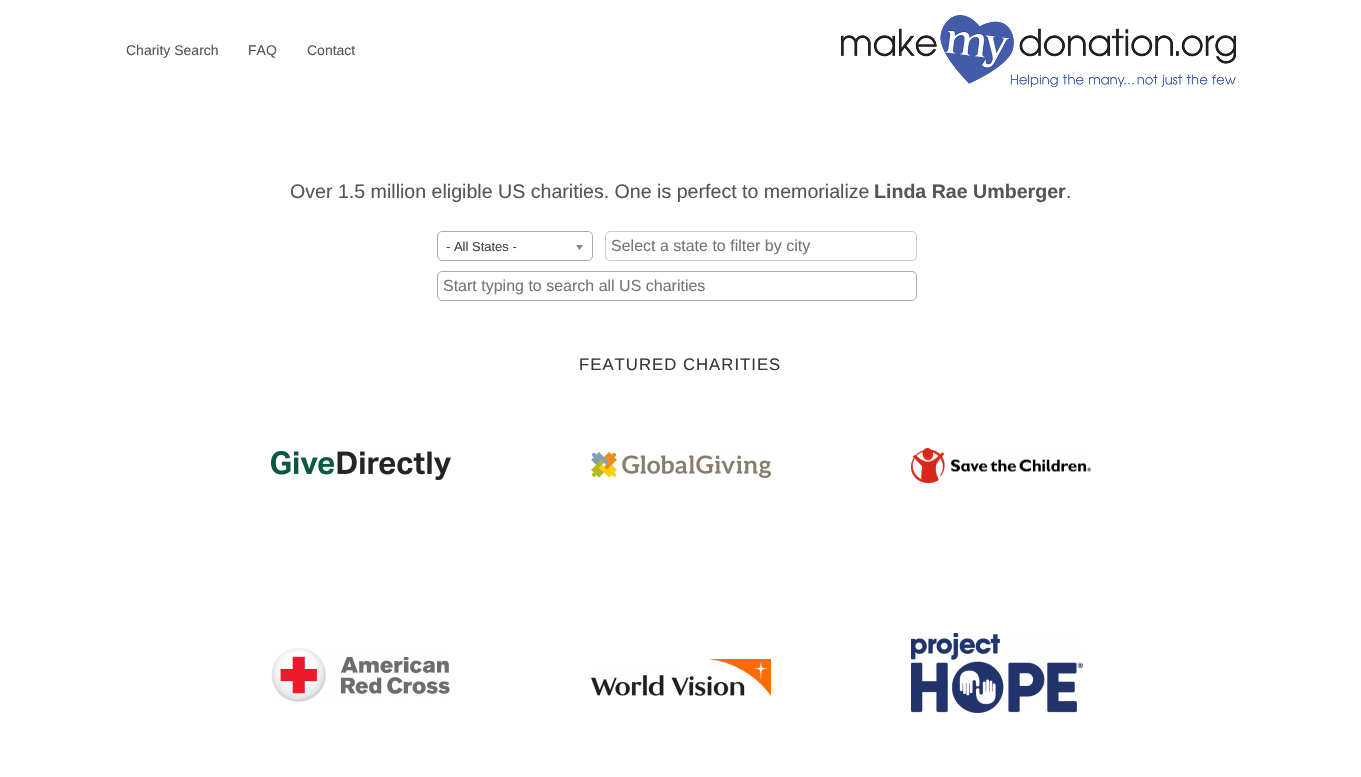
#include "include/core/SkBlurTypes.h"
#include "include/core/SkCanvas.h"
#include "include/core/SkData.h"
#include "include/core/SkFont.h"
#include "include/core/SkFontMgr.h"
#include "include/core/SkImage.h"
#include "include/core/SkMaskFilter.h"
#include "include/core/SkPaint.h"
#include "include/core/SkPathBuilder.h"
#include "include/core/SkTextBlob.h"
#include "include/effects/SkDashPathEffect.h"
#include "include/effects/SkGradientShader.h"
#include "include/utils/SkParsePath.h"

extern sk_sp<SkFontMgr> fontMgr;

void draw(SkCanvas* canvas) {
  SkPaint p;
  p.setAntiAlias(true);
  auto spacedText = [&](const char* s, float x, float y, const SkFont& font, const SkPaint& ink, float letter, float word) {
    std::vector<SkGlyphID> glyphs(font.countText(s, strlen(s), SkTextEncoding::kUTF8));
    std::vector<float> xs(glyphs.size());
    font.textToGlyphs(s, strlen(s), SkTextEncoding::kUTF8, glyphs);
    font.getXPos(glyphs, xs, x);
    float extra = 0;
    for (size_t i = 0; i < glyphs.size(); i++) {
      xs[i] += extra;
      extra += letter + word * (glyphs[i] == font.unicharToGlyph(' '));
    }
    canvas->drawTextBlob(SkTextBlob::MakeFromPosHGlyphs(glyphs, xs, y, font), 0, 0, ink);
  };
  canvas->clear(SK_ColorWHITE);
  canvas->drawImageRect(SkImages::DeferredFromEncodedData(SkData::MakeFromFileName("images/1.png")), SkRect::MakeLTRB(841, 15, 1236, 87), SkSamplingOptions());
  p.setStyle(SkPaint::kStroke_Style);
  p.setStrokeWidth(1);
  p.setColor(SkColorSetRGB(170, 170, 170));
  canvas->drawRoundRect(SkRect::MakeLTRB(437.5f, 231.5f, 592.5f, 260.5f), 4.5f, 4.5f, p);
  canvas->drawImageRect(SkImages::DeferredFromEncodedData(SkData::MakeFromFileName("images/2.png")), SkRect::MakeLTRB(576, 245, 583, 251), SkSamplingOptions());
  p.setColor(SkColorSetRGB(204, 204, 204));
  canvas->drawRoundRect(SkRect::MakeLTRB(605.5f, 231.5f, 916.5f, 260.5f), 4.5f, 4.5f, p);
  p.setColor(SkColorSetRGB(170, 170, 170));
  canvas->drawRoundRect(SkRect::MakeLTRB(437.5f, 271.5f, 916.5f, 300.5f), 4.5f, 4.5f, p);
  canvas->drawImageRect(SkImages::DeferredFromEncodedData(SkData::MakeFromFileName("images/3.png")), SkRect::MakeLTRB(271, 451, 451, 480), SkSamplingOptions());
  canvas->drawImageRect(SkImages::DeferredFromEncodedData(SkData::MakeFromFileName("images/4.png")), SkRect::MakeLTRB(591, 452, 771, 478), SkSamplingOptions());
  canvas->drawImageRect(SkImages::DeferredFromEncodedData(SkData::MakeFromFileName("images/5.png")), SkRect::MakeLTRB(911, 448, 1091, 483), SkSamplingOptions());
  canvas->drawImageRect(SkImages::DeferredFromEncodedData(SkData::MakeFromFileName("images/6.png")), SkRect::MakeLTRB(271, 648, 450, 702), SkSamplingOptions());
  canvas->drawImageRect(SkImages::DeferredFromEncodedData(SkData::MakeFromFileName("images/7.png")), SkRect::MakeLTRB(591, 659, 771, 696), SkSamplingOptions());
  canvas->drawImageRect(SkImages::DeferredFromEncodedData(SkData::MakeFromFileName("images/8.png")), SkRect::MakeLTRB(911, 633, 1084, 714), SkSamplingOptions());
  SkFont font1(fontMgr->matchFamilyStyle("Liberation Sans", SkFontStyle::Normal()), 14);
  font1.setSubpixel(true);
  p.setStyle(SkPaint::kFill_Style);
  p.setColor(SkColorSetRGB(85, 85, 85));
  canvas->drawString("Charity Search", 126, 55, font1, p);
  canvas->drawString("FAQ", 248, 55, font1, p);
  canvas->drawString("Contact", 307, 55, font1, p);
  SkFont font2(fontMgr->matchFamilyStyle("Liberation Sans", SkFontStyle::Normal()), 19.6f);
  font2.setSubpixel(true);
  canvas->drawString("Over 1.5 million eligible US charities. One is perfect to memorialize", 290, 198, font2, p);
  SkFont font3(fontMgr->matchFamilyStyle("Liberation Sans", SkFontStyle::Bold()), 19.6f);
  font3.setSubpixel(true);
  canvas->drawString("Linda Rae Umberger", 874, 198, font3, p);
  canvas->drawString(".", 1066, 198, font2, p);
  SkFont font4(fontMgr->matchFamilyStyle("Liberation Sans", SkFontStyle::Normal()), 13);
  font4.setSubpixel(true);
  p.setColor(SkColorSetRGB(68, 68, 68));
  canvas->drawString("- All States -", 446, 251, font4, p);
  SkFont font5(fontMgr->matchFamilyStyle("Liberation Sans", SkFontStyle::Normal()), 16);
  font5.setSubpixel(true);
  p.setColor(SkColorSetRGB(117, 117, 117));
  canvas->drawString("Select a state to filter by city", 611, 251, font5, p);
  canvas->drawString("Start typing to search all US charities", 443, 291, font5, p);
  SkFont font6(fontMgr->matchFamilyStyle("Liberation Sans", SkFontStyle::Normal()), 16.75f);
  font6.setSubpixel(true);
  p.setColor(SkColorSetRGB(55, 55, 55));
  spacedText("FEATURED CHARITIES", 579, 370, font6, p, 1, 0);
}
